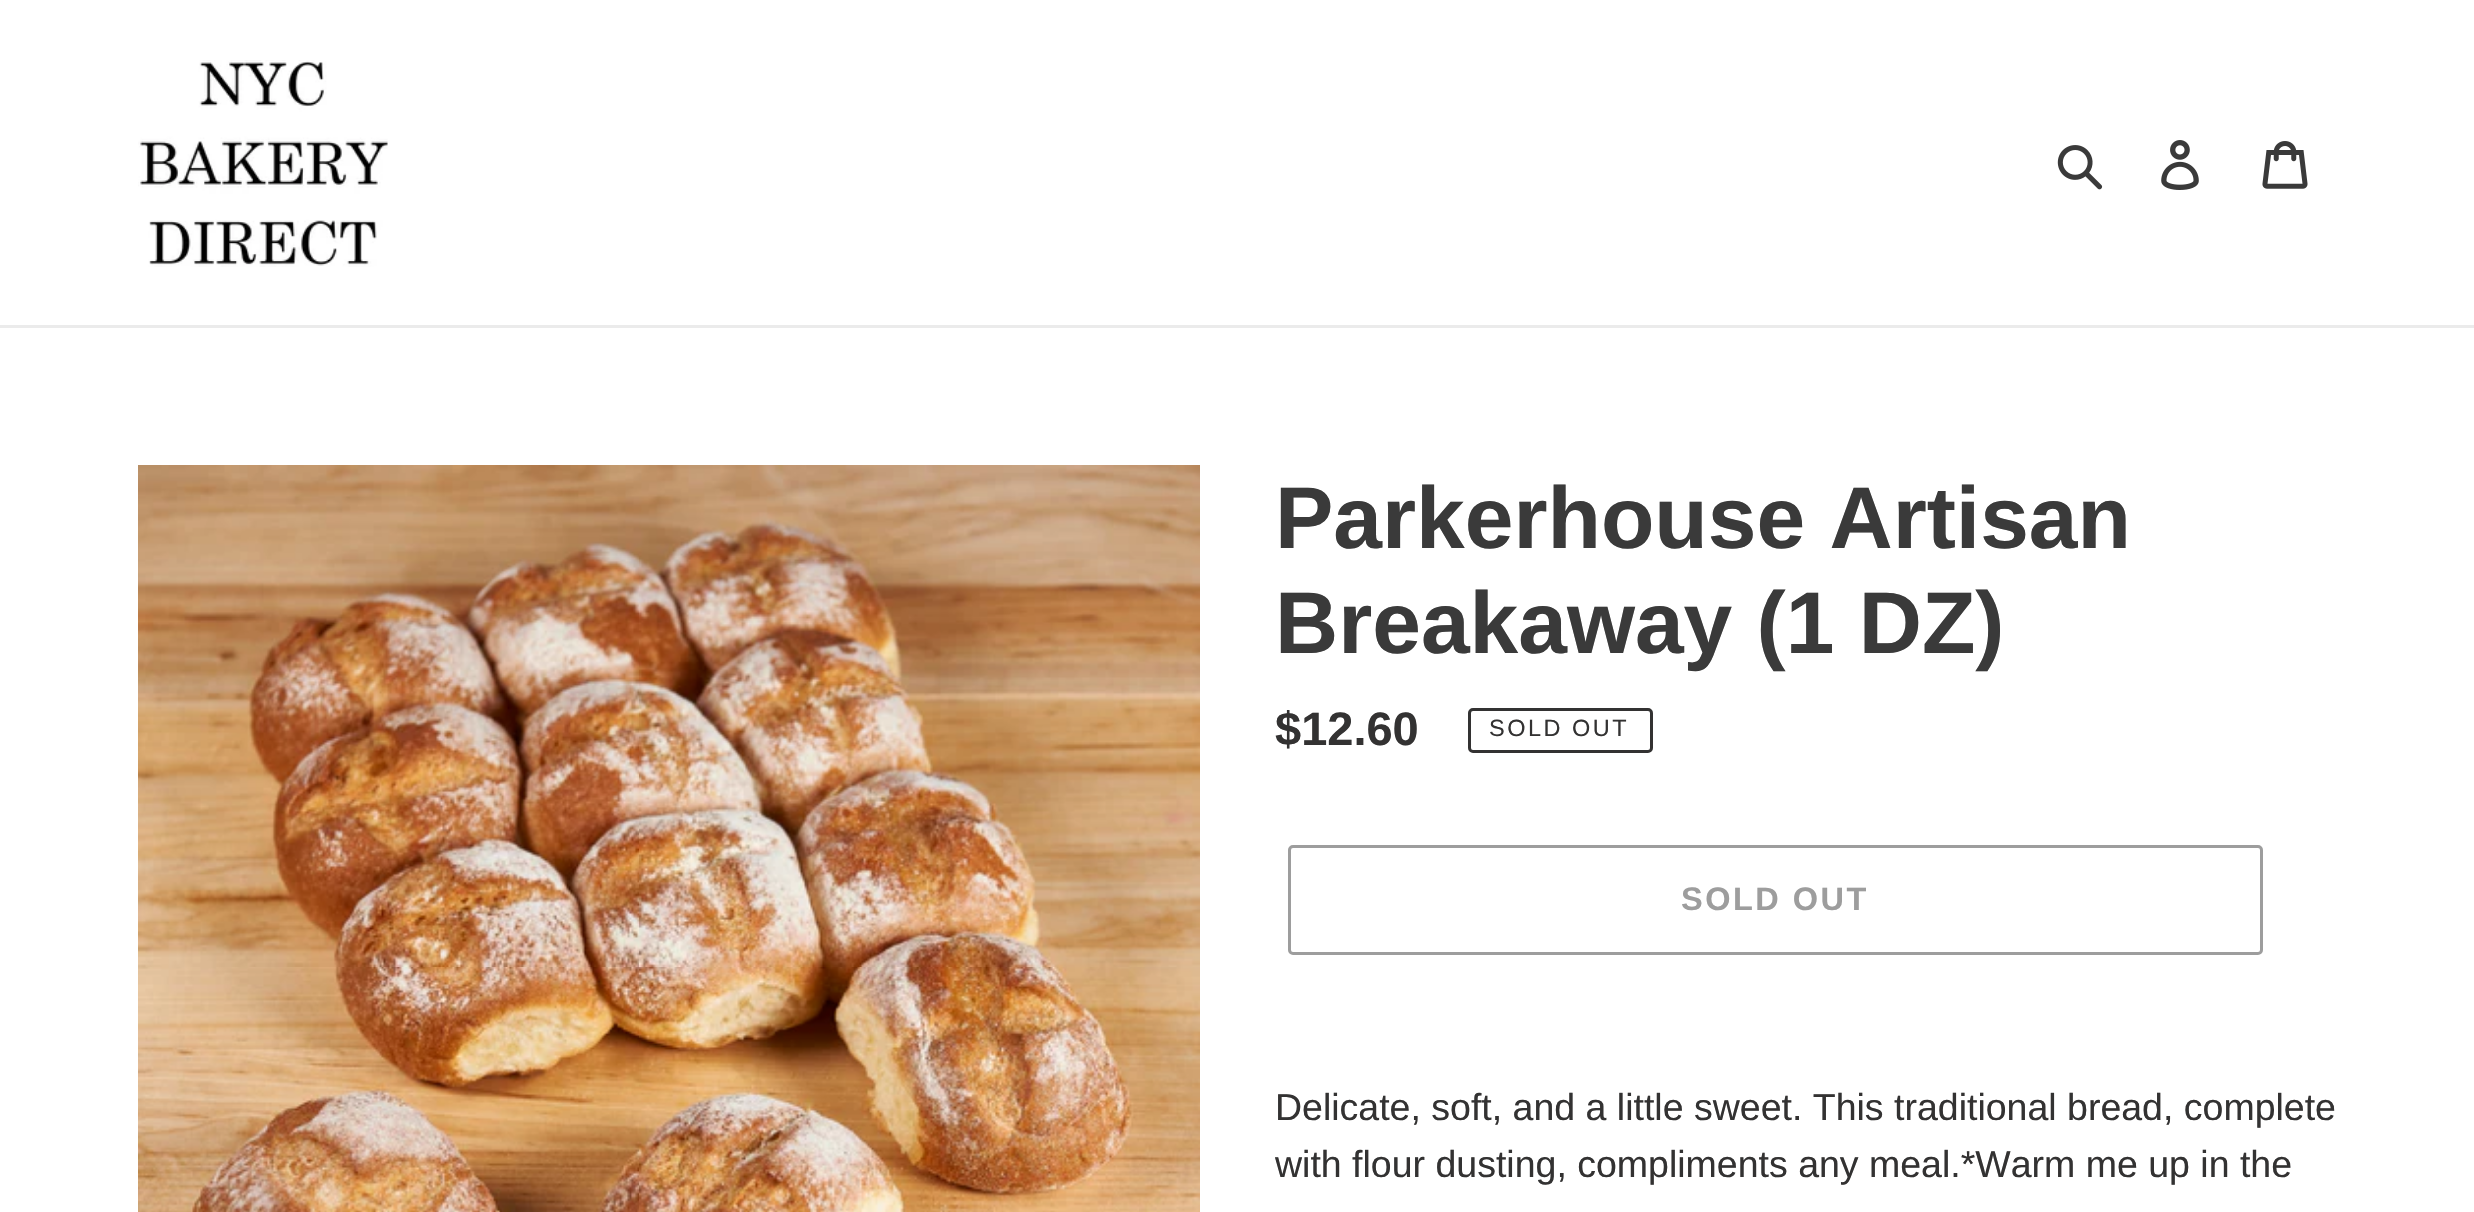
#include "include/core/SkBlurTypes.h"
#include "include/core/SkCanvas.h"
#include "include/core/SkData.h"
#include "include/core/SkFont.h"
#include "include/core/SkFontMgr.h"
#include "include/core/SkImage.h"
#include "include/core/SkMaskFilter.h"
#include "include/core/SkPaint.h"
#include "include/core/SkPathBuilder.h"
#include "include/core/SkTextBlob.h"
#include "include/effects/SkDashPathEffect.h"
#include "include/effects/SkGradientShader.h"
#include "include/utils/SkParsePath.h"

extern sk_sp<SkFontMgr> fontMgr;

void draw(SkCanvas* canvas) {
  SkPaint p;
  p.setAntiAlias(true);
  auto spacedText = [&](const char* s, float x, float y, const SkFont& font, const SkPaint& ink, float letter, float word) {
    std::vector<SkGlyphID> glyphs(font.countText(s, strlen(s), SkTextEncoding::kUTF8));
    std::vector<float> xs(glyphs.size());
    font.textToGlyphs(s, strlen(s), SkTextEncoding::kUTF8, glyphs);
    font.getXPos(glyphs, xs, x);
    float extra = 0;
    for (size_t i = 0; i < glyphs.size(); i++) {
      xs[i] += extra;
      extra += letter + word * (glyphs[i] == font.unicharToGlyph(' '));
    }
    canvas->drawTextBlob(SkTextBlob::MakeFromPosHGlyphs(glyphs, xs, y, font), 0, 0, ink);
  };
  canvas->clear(SK_ColorWHITE);
  p.setColor(SkColorSetRGB(235, 235, 235));
  canvas->drawRect(SkRect::MakeLTRB(0, 325, 2474, 328), p);
  canvas->drawImageRect(SkImages::DeferredFromEncodedData(SkData::MakeFromFileName("images/1.png")), SkRect::MakeLTRB(138, 60, 388, 267), SkSamplingOptions());
  canvas->drawImageRect(SkImages::DeferredFromEncodedData(SkData::MakeFromFileName("images/2.png")), SkRect::MakeLTRB(2057, 145, 2103, 190), SkSamplingOptions());
  canvas->drawImageRect(SkImages::DeferredFromEncodedData(SkData::MakeFromFileName("images/3.png")), SkRect::MakeLTRB(2161, 140, 2199, 190), SkSamplingOptions());
  canvas->drawImageRect(SkImages::DeferredFromEncodedData(SkData::MakeFromFileName("images/4.png")), SkRect::MakeLTRB(2262, 141, 2308, 189), SkSamplingOptions());
  canvas->drawImageRect(SkImages::DeferredFromEncodedData(SkData::MakeFromFileName("images/5.png")), SkRect::MakeLTRB(138, 465, 1200, 1212), SkSamplingOptions());
  p.setStyle(SkPaint::kStroke_Style);
  p.setStrokeWidth(3);
  p.setColor(SkColorSetRGB(51, 50, 50));
  canvas->drawRoundRect(SkRect::MakeLTRB(1469.5f, 709.5f, 1651.5f, 751.5f), 3.5f, 3.5f, p);
  p.setColor(SkColorSetRGB(157, 157, 157));
  canvas->drawRoundRect(SkRect::MakeLTRB(1289.5f, 846.5f, 2261.5f, 953.5f), 3.5f, 3.5f, p);
  SkFont font1(fontMgr->matchFamilyStyle("Liberation Sans", SkFontStyle::Bold()), 87.5f);
  font1.setSubpixel(true);
  p.setStyle(SkPaint::kFill_Style);
  p.setColor(SkColorSetRGB(58, 58, 58));
  canvas->drawString("Parkerhouse Artisan", 1275, 548, font1, p);
  canvas->drawString("Breakaway (1 DZ)", 1275, 653, font1, p);
  SkFont font2(fontMgr->matchFamilyStyle("Liberation Sans", SkFontStyle::Bold()), 47);
  font2.setSubpixel(true);
  p.setColor(SkColorSetRGB(51, 50, 50));
  canvas->drawString("$12.60", 1275, 745, font2, p);
  SkFont font3(fontMgr->matchFamilyStyle("Liberation Sans", SkFontStyle::Normal()), 23.5f);
  font3.setSubpixel(true);
  spacedText("SOLD OUT", 1489, 736, font3, p, 2.5f, 0);
  SkFont font4(fontMgr->matchFamilyStyle("Liberation Sans", SkFontStyle::Bold()), 32.5f);
  font4.setSubpixel(true);
  p.setColor(SkColorSetRGB(157, 157, 157));
  spacedText("SOLD OUT", 1681, 910, font4, p, 2.5f, 0);
  SkFont font5(fontMgr->matchFamilyStyle("Liberation Sans", SkFontStyle::Normal()), 37.5f);
  font5.setSubpixel(true);
  p.setColor(SkColorSetRGB(51, 50, 50));
  canvas->drawString("Delicate, soft, and a little sweet. This traditional bread, complete", 1275, 1120, font5, p);
  canvas->drawString("with flour dusting, compliments any meal.*Warm me up in the", 1275, 1177, font5, p);
}
